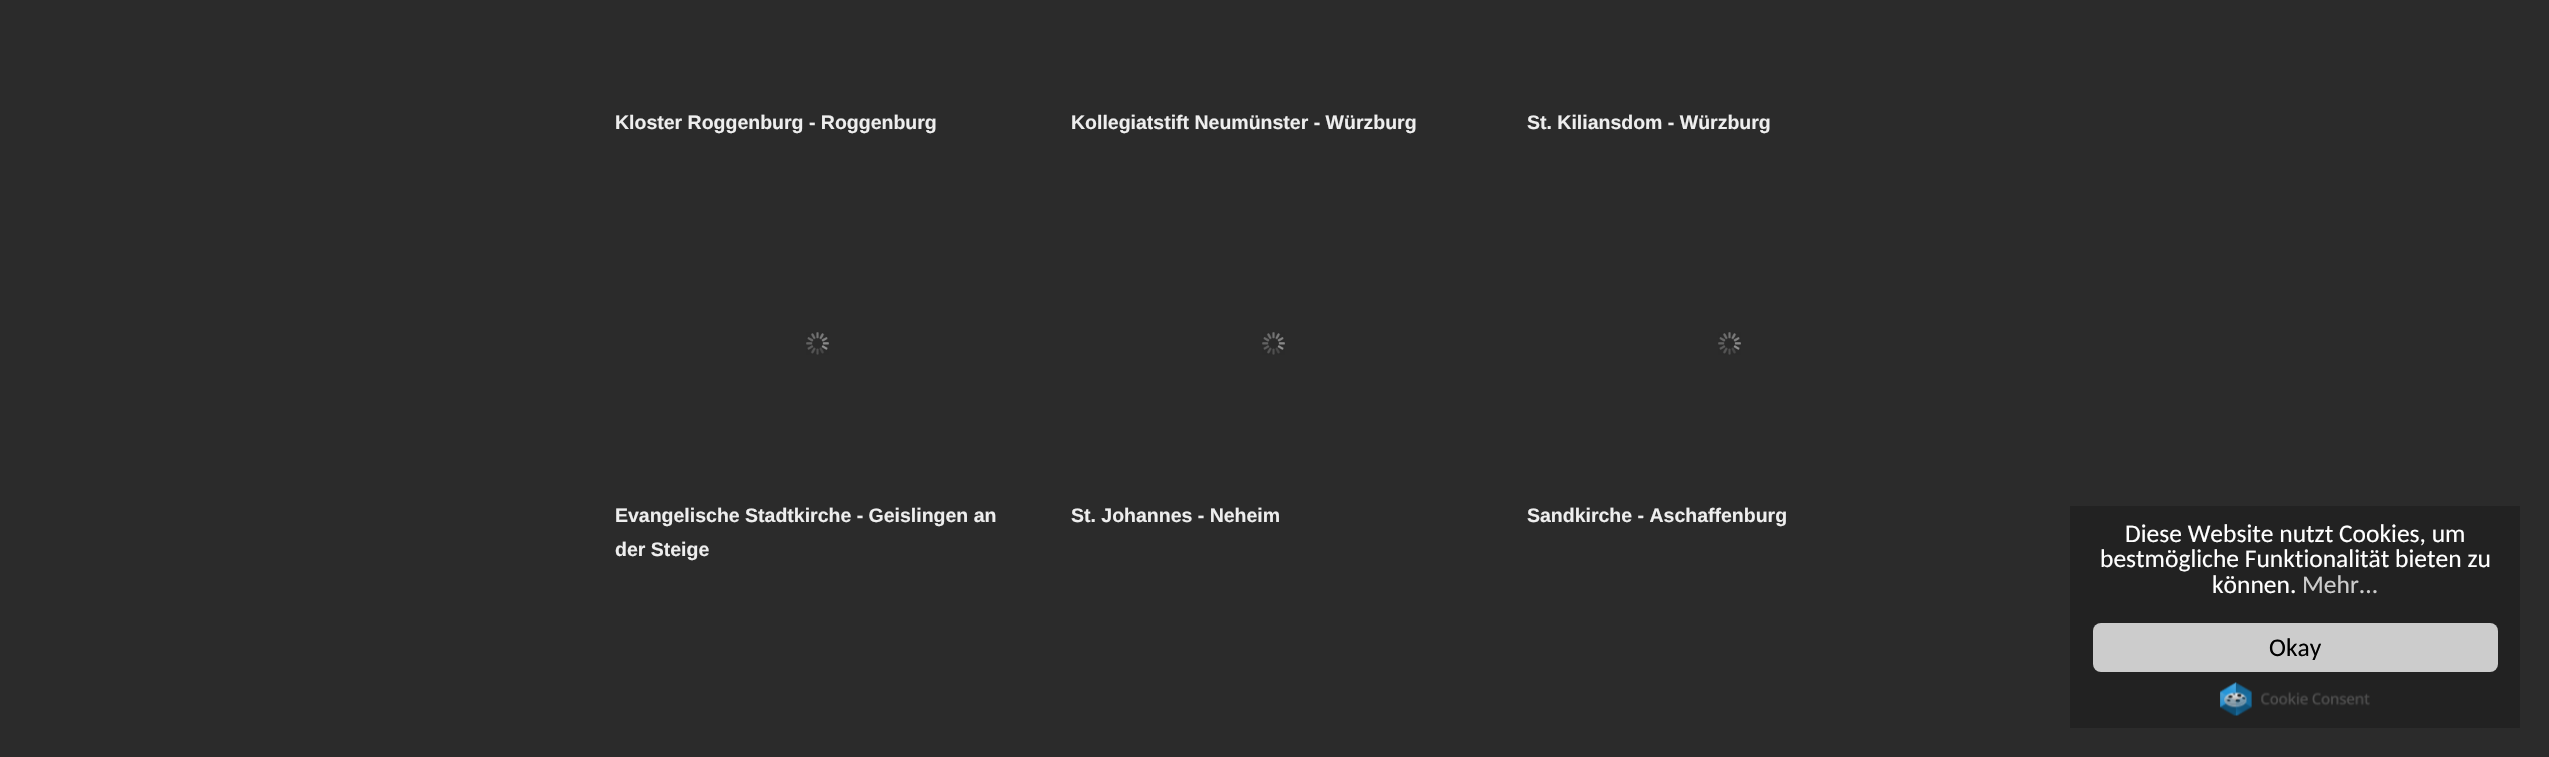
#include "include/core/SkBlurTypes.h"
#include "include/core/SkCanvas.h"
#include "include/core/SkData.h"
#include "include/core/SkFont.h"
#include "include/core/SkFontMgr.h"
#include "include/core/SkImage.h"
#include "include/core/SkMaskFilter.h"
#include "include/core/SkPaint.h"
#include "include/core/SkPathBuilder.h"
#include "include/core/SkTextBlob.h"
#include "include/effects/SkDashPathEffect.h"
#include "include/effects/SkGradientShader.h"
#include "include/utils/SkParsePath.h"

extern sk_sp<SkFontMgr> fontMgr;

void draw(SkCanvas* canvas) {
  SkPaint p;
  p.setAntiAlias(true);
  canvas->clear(SkColorSetRGB(43, 43, 43));
  canvas->drawImageRect(SkImages::DeferredFromEncodedData(SkData::MakeFromFileName("images/1.png")), SkRect::MakeLTRB(806, 332, 829, 355), SkSamplingOptions());
  canvas->drawImageRect(SkImages::DeferredFromEncodedData(SkData::MakeFromFileName("images/1.png")), SkRect::MakeLTRB(1262, 332, 1285, 355), SkSamplingOptions());
  canvas->drawImageRect(SkImages::DeferredFromEncodedData(SkData::MakeFromFileName("images/1.png")), SkRect::MakeLTRB(1718, 332, 1741, 355), SkSamplingOptions());
  p.setColor(SkColorSetRGB(34, 34, 34));
  canvas->drawRect(SkRect::MakeLTRB(2070, 506, 2520, 728), p);
  p.setColor(SkColorSetRGB(204, 204, 204));
  canvas->drawRoundRect(SkRect::MakeLTRB(2093, 623, 2498, 672), 8, 8, p);
  canvas->drawImageRect(SkImages::DeferredFromEncodedData(SkData::MakeFromFileName("images/2.png")), SkRect::MakeLTRB(2220, 682, 2370, 716), SkSamplingOptions());
  SkFont font1(fontMgr->matchFamilyStyle("Liberation Sans", SkFontStyle::Bold()), 19.5f);
  font1.setSubpixel(true);
  p.setColor(SkColorSetRGB(238, 238, 238));
  canvas->drawString("Kloster Roggenburg - Roggenburg", 615, 129, font1, p);
  canvas->drawString("Kollegiatstift Neumünster - Würzburg", 1071, 129, font1, p);
  canvas->drawString("St. Kiliansdom - Würzburg", 1527, 129, font1, p);
  canvas->drawString("Evangelische Stadtkirche - Geislingen an", 615, 522, font1, p);
  canvas->drawString("der Steige", 615, 556, font1, p);
  canvas->drawString("St. Johannes - Neheim", 1071, 522, font1, p);
  canvas->drawString("Sandkirche - Aschaffenburg", 1527, 522, font1, p);
  SkFont font2(fontMgr->matchFamilyStyle("Carlito", SkFontStyle::Normal()), 25.5f);
  font2.setSubpixel(true);
  p.setColor(SK_ColorWHITE);
  canvas->drawString("Diese Website nutzt Cookies, um", 2125, 542, font2, p);
  canvas->drawString("bestmögliche Funktionalität bieten zu", 2100, 567, font2, p);
  canvas->drawString("können.", 2212, 593, font2, p);
  p.setColor(SkColorSetRGB(204, 204, 204));
  canvas->drawString("Mehr...", 2302, 593, font2, p);
  p.setColor(SK_ColorBLACK);
  canvas->drawString("Okay", 2269, 656, font2, p);
}
